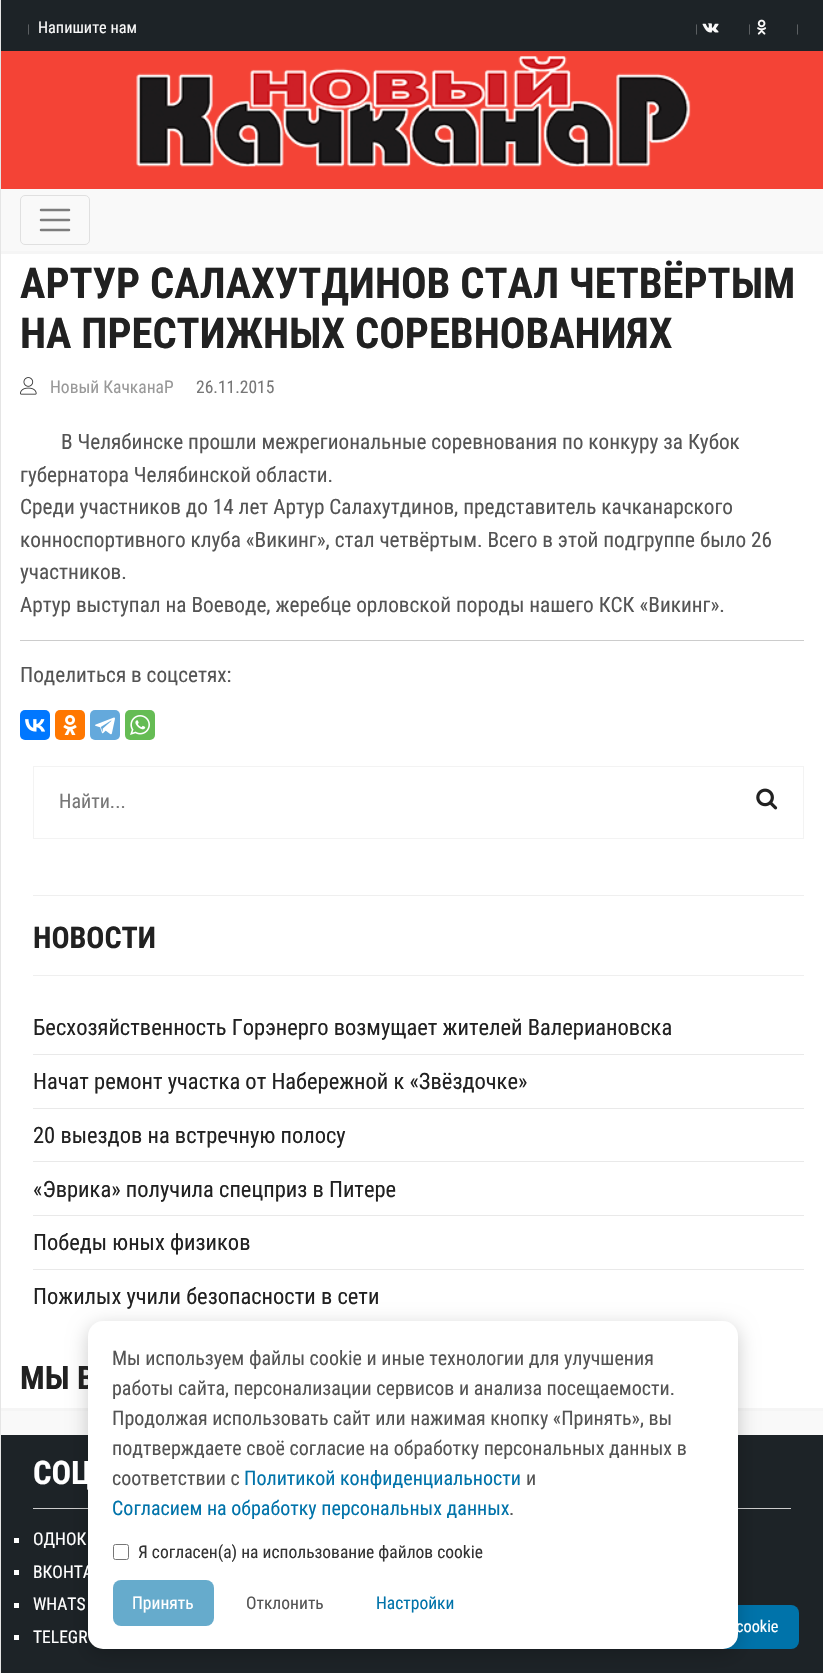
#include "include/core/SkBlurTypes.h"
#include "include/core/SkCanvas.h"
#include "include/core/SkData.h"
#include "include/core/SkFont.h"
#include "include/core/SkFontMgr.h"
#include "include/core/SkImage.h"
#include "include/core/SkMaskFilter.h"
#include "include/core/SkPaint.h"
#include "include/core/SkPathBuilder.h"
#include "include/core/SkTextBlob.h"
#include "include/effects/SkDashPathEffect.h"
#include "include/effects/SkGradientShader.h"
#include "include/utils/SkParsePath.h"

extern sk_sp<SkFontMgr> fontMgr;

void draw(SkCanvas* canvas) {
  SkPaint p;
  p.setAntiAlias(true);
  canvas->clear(SK_ColorWHITE);
  p.setColor(SkColorSetRGB(229, 229, 229));
  canvas->drawRect(SkRect::MakeLTRB(0, 0, 1, 1673), p);
  p.setColor(SkColorSetRGB(29, 35, 39));
  canvas->drawRect(SkRect::MakeLTRB(1, 0, 823, 51), p);
  canvas->drawImageRect(SkImages::DeferredFromEncodedData(SkData::MakeFromFileName("images/1.png")), SkRect::MakeLTRB(702, 23, 719, 33), SkSamplingOptions());
  canvas->drawImageRect(SkImages::DeferredFromEncodedData(SkData::MakeFromFileName("images/2.png")), SkRect::MakeLTRB(757, 19, 767, 35), SkSamplingOptions());
  p.setColor(SkColorSetRGB(244, 67, 54));
  canvas->drawRect(SkRect::MakeLTRB(1, 51, 823, 189), p);
  canvas->drawImageRect(SkImages::DeferredFromEncodedData(SkData::MakeFromFileName("images/3.png")), SkRect::MakeLTRB(136, 56, 691, 167), SkSamplingOptions());
  p.setColor(SkColorSetRGB(249, 249, 249));
  canvas->drawRect(SkRect::MakeLTRB(1, 189, 823, 251), p);
  p.setColor(SkColorSetRGB(245, 245, 245));
  canvas->drawRect(SkRect::MakeLTRB(1, 251, 823, 254), p);
  p.setStyle(SkPaint::kStroke_Style);
  p.setStrokeWidth(1);
  p.setColor(SkColorSetRGB(224, 224, 224));
  canvas->drawRoundRect(SkRect::MakeLTRB(20.5f, 195.5f, 89.5f, 244.5f), 4.5f, 4.5f, p);
  p.setStrokeWidth(2.5f);
  p.setStrokeCap(SkPaint::kRound_Cap);
  p.setColor(SkColorSetRGB(125, 125, 125));
  canvas->drawPath(SkPathBuilder().moveTo(41, 210).lineTo(69, 210).moveTo(41, 220).lineTo(69, 220).moveTo(41, 230).lineTo(69, 230).detach(), p);
  canvas->drawImageRect(SkImages::DeferredFromEncodedData(SkData::MakeFromFileName("images/4.png")), SkRect::MakeLTRB(20, 377, 37, 395), SkSamplingOptions());
  p.setStyle(SkPaint::kFill_Style);
  p.setColor(SkColorSetRGB(204, 204, 204));
  canvas->drawRect(SkRect::MakeLTRB(20, 640, 804, 641), p);
  p.setColor(SkColorSetRGB(0, 119, 255));
  canvas->drawRoundRect(SkRect::MakeLTRB(20, 710, 50, 740), 5, 5, p);
  canvas->drawImageRect(SkImages::DeferredFromEncodedData(SkData::MakeFromFileName("images/5.png")), SkRect::MakeLTRB(25, 719, 45, 732), SkSamplingOptions());
  p.setColor(SkColorSetRGB(255, 119, 0));
  canvas->drawRoundRect(SkRect::MakeLTRB(55, 710, 85, 740), 5, 5, p);
  canvas->drawImageRect(SkImages::DeferredFromEncodedData(SkData::MakeFromFileName("images/6.png")), SkRect::MakeLTRB(63, 715, 77, 735), SkSamplingOptions());
  p.setColor(SkColorSetRGB(100, 169, 220));
  canvas->drawRoundRect(SkRect::MakeLTRB(90, 710, 120, 740), 5, 5, p);
  canvas->drawImageRect(SkImages::DeferredFromEncodedData(SkData::MakeFromFileName("images/7.png")), SkRect::MakeLTRB(95, 717, 115, 735), SkSamplingOptions());
  p.setColor(SkColorSetRGB(101, 188, 84));
  canvas->drawRoundRect(SkRect::MakeLTRB(125, 710, 155, 740), 5, 5, p);
  canvas->drawImageRect(SkImages::DeferredFromEncodedData(SkData::MakeFromFileName("images/8.png")), SkRect::MakeLTRB(130, 715, 150, 735), SkSamplingOptions());
  p.setStyle(SkPaint::kStroke_Style);
  p.setStrokeWidth(1);
  p.setStrokeCap(SkPaint::kButt_Cap);
  p.setColor(SkColorSetRGB(243, 243, 243));
  canvas->drawRect(SkRect::MakeLTRB(33.5f, 766.5f, 803.5f, 838.5f), p);
  canvas->drawImageRect(SkImages::DeferredFromEncodedData(SkData::MakeFromFileName("images/9.png")), SkRect::MakeLTRB(756, 788, 778, 810), SkSamplingOptions());
  p.setStyle(SkPaint::kFill_Style);
  p.setColor(SkColorSetRGB(239, 239, 239));
  canvas->drawRect(SkRect::MakeLTRB(33, 895, 804, 896), p);
  canvas->drawRect(SkRect::MakeLTRB(33, 975, 804, 976), p);
  p.setColor(SkColorSetRGB(233, 233, 233));
  canvas->drawRect(SkRect::MakeLTRB(33, 1054, 804, 1055), p);
  canvas->drawRect(SkRect::MakeLTRB(33, 1108, 804, 1109), p);
  canvas->drawRect(SkRect::MakeLTRB(33, 1161, 804, 1162), p);
  canvas->drawRect(SkRect::MakeLTRB(33, 1215, 804, 1216), p);
  canvas->drawRect(SkRect::MakeLTRB(33, 1269, 804, 1270), p);
  p.setColor(SkColorSetRGB(249, 249, 249));
  canvas->drawRect(SkRect::MakeLTRB(1, 1411, 823, 1435), p);
  p.setColor(SkColorSetRGB(245, 245, 245));
  canvas->drawRect(SkRect::MakeLTRB(1, 1408, 823, 1411), p);
  p.setColor(SkColorSetRGB(29, 35, 39));
  canvas->drawRect(SkRect::MakeLTRB(1, 1435, 823, 1673), p);
  p.setColor(SkColorSetRGB(204, 204, 204));
  canvas->drawRect(SkRect::MakeLTRB(33, 1508, 791, 1509), p);
  p.setColor(SK_ColorWHITE);
  canvas->drawRect(SkRect::MakeLTRB(14, 1538, 19, 1543), p);
  canvas->drawRect(SkRect::MakeLTRB(14, 1570, 19, 1575), p);
  canvas->drawRect(SkRect::MakeLTRB(14, 1603, 19, 1608), p);
  canvas->drawRect(SkRect::MakeLTRB(14, 1635, 19, 1640), p);
  p.setColor(SkColorSetRGB(0, 115, 170));
  canvas->drawRoundRect(SkRect::MakeLTRB(640, 1605, 799, 1649), 8, 8, p);
  p.setColor(SkColorSetARGB(51, 0, 0, 0));
  p.setMaskFilter(SkMaskFilter::MakeBlur(kNormal_SkBlurStyle, 10));
  canvas->drawRoundRect(SkRect::MakeLTRB(88, 1326, 738, 1654), 15, 15, p);
  p.setMaskFilter(nullptr);
  SkFont font1(fontMgr->matchFamilyStyle("Roboto Condensed", SkFontStyle::Normal()), 12);
  font1.setSubpixel(true);
  p.setColor(SkColorSetRGB(97, 101, 104));
  canvas->drawString("|", 27, 33, font1, p);
  SkFont font2(fontMgr->matchFamilyStyle("Roboto Condensed", SkFontStyle::Normal()), 16.25f);
  font2.setSubpixel(true);
  p.setColor(SkColorSetRGB(249, 249, 249));
  canvas->drawString("Напишите нам", 38, 33, font2, p);
  p.setColor(SkColorSetRGB(97, 101, 104));
  canvas->drawString("|", 695, 33, font1, p);
  canvas->drawString("|", 748, 33, font1, p);
  canvas->drawString("|", 796, 33, font1, p);
  SkFont font3(fontMgr->matchFamilyStyle("Roboto Condensed", SkFontStyle::Bold()), 42.5f);
  font3.setSubpixel(true);
  p.setColor(SkColorSetRGB(33, 33, 33));
  canvas->drawString("АРТУР САЛАХУТДИНОВ СТАЛ ЧЕТВЁРТЫМ", 20, 298, font3, p);
  canvas->drawString("НА ПРЕСТИЖНЫХ СОРЕВНОВАНИЯХ", 20, 348, font3, p);
  SkFont font4(fontMgr->matchFamilyStyle("Roboto Condensed", SkFontStyle::Normal()), 17.5f);
  font4.setSubpixel(true);
  p.setColor(SkColorSetRGB(153, 153, 153));
  canvas->drawString("Новый КачканаР", 50, 393, font4, p);
  p.setColor(SkColorSetRGB(119, 119, 119));
  canvas->drawString("26.11.2015", 196, 393, font4, p);
  SkFont font5(fontMgr->matchFamilyStyle("Roboto Condensed", SkFontStyle::Normal()), 21.25f);
  font5.setSubpixel(true);
  p.setColor(SkColorSetRGB(84, 84, 84));
  canvas->drawString("В Челябинске прошли межрегиональные соревнования по конкуру за Кубок", 61, 449, font5, p);
  canvas->drawString("губернатора Челябинской области.", 20, 482, font5, p);
  canvas->drawString("Среди участников до 14 лет Артур Салахутдинов, представитель качканарского", 20, 514, font5, p);
  canvas->drawString("конноспортивного клуба «Викинг», стал четвёртым. Всего в этой подгруппе было 26", 20, 547, font5, p);
  canvas->drawString("участников.", 20, 579, font5, p);
  canvas->drawString("Артур выступал на Воеводе, жеребце орловской породы нашего КСК «Викинг».", 20, 612, font5, p);
  canvas->drawString("Поделиться в соцсетях:", 20, 682, font5, p);
  SkFont font6(fontMgr->matchFamilyStyle("Roboto Condensed", SkFontStyle::Normal()), 20);
  font6.setSubpixel(true);
  p.setColor(SkColorSetRGB(119, 119, 119));
  canvas->drawString("Найти...", 59, 808, font6, p);
  SkFont font7(fontMgr->matchFamilyStyle("Roboto Condensed", SkFontStyle::Bold()), 30);
  font7.setSubpixel(true);
  p.setColor(SkColorSetRGB(33, 33, 33));
  canvas->drawString("НОВОСТИ", 33, 948, font7, p);
  SkFont font8(fontMgr->matchFamilyStyle("Roboto Condensed", SkFontStyle::Normal()), 22.5f);
  font8.setSubpixel(true);
  canvas->drawString("Бесхозяйственность Горэнерго возмущает жителей Валериановска", 33, 1035, font8, p);
  canvas->drawString("Начат ремонт участка от Набережной к «Звёздочке»", 33, 1089, font8, p);
  canvas->drawString("20 выездов на встречную полосу", 33, 1143, font8, p);
  canvas->drawString("«Эврика» получила спецприз в Питере", 33, 1197, font8, p);
  canvas->drawString("Победы юных физиков", 33, 1250, font8, p);
  canvas->drawString("Пожилых учили безопасности в сети", 33, 1304, font8, p);
  SkFont font9(fontMgr->matchFamilyStyle("Roboto Condensed", SkFontStyle::Bold()), 32.5f);
  font9.setSubpixel(true);
  canvas->drawString("МЫ В", 20, 1389, font9, p);
  p.setColor(SK_ColorWHITE);
  canvas->drawString("СОЦ", 33, 1484, font9, p);
  canvas->drawString("ОДНОК", 33, 1545, font4, p);
  canvas->drawString("ВКОНТА", 33, 1578, font4, p);
  canvas->drawString("WHATS", 33, 1610, font4, p);
  canvas->drawString("TELEGR", 33, 1643, font4, p);
  canvas->drawRoundRect(SkRect::MakeLTRB(88, 1321, 738, 1649), 15, 15, p);
  p.setColor(SkColorSetRGB(84, 84, 84));
  canvas->drawString("Мы используем файлы cookie и иные технологии для улучшения", 112, 1365, font6, p);
  canvas->drawString("работы сайта, персонализации сервисов и анализа посещаемости.", 112, 1395, font6, p);
  canvas->drawString("Продолжая использовать сайт или нажимая кнопку «Принять», вы", 112, 1425, font6, p);
  canvas->drawString("подтверждаете своё согласие на обработку персональных данных в", 112, 1455, font6, p);
  canvas->drawString("соответствии с", 112, 1485, font6, p);
  p.setColor(SkColorSetRGB(0, 115, 170));
  canvas->drawString("Политикой конфиденциальности", 244, 1485, font6, p);
  p.setColor(SkColorSetRGB(84, 84, 84));
  canvas->drawString("и", 526, 1485, font6, p);
  p.setColor(SkColorSetRGB(0, 115, 170));
  canvas->drawString("Согласием на обработку персональных данных", 112, 1515, font6, p);
  p.setColor(SkColorSetRGB(84, 84, 84));
  canvas->drawString(".", 509, 1515, font6, p);
  p.setStyle(SkPaint::kStroke_Style);
  p.setColor(SkColorSetRGB(118, 118, 118));
  canvas->drawRoundRect(SkRect::MakeLTRB(113.5f, 1544.5f, 128.5f, 1559.5f), 2, 2, p);
  p.setStyle(SkPaint::kFill_Style);
  p.setColor(SkColorSetRGB(51, 51, 51));
  canvas->drawString("Я согласен(а) на использование файлов cookie", 138, 1558, font4, p);
  p.setColor(SkColorSetRGB(102, 171, 204));
  canvas->drawRoundRect(SkRect::MakeLTRB(113, 1580, 214, 1626), 8, 8, p);
  p.setColor(SK_ColorWHITE);
  canvas->drawString("Принять", 132, 1609, font4, p);
  p.setColor(SkColorSetRGB(84, 84, 84));
  canvas->drawString("Отклонить", 246, 1609, font4, p);
  p.setColor(SkColorSetRGB(0, 115, 170));
  canvas->drawString("Настройки", 376, 1609, font4, p);
  p.setColor(SK_ColorWHITE);
  canvas->drawString("cookie", 736, 1632, font2, p);
}
